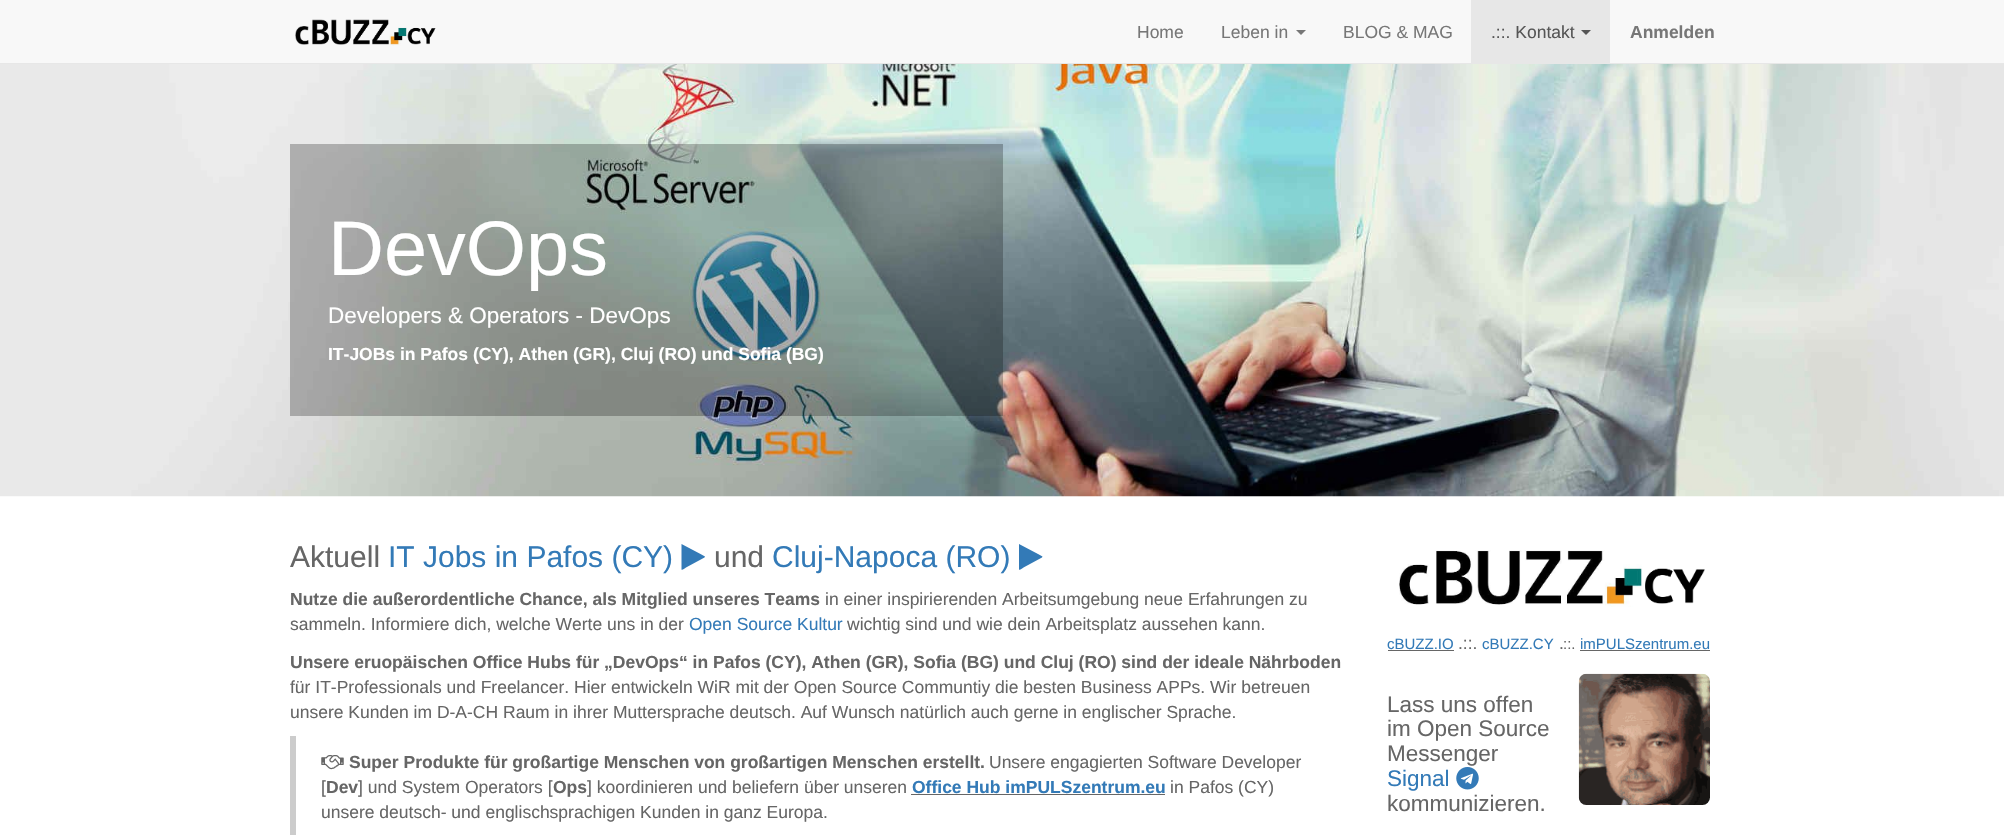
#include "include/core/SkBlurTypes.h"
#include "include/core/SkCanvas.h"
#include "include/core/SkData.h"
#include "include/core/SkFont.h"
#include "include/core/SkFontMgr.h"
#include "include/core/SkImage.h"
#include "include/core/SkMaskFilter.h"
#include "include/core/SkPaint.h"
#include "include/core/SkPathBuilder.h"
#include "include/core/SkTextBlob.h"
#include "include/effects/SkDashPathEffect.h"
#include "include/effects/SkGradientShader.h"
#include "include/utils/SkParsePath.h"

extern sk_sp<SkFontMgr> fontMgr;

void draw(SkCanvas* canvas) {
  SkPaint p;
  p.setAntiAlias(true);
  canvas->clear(SK_ColorWHITE);
  p.setColor(SkColorSetRGB(248, 248, 248));
  canvas->drawRect(SkRect::MakeLTRB(0, 0, 2004, 63), p);
  p.setColor(SkColorSetRGB(231, 231, 231));
  canvas->drawRect(SkRect::MakeLTRB(0, 63, 2004, 64), p);
  canvas->drawImageRect(SkImages::DeferredFromEncodedData(SkData::MakeFromFileName("images/1.png")), SkRect::MakeLTRB(295, 19, 436, 46), SkSamplingOptions());
  p.setColor(SkColorSetRGB(119, 119, 119));
  canvas->drawPath(SkPathBuilder().moveTo(1296, 30).lineTo(1306, 30).lineTo(1301, 35).close().detach(), p);
  p.setColor(SkColorSetRGB(231, 231, 231));
  canvas->drawRect(SkRect::MakeLTRB(1471, 0, 1610, 63), p);
  p.setColor(SkColorSetRGB(85, 85, 85));
  canvas->drawPath(SkPathBuilder().moveTo(1581, 30).lineTo(1591, 30).lineTo(1586, 35).close().detach(), p);
  canvas->drawImageRect(SkImages::DeferredFromEncodedData(SkData::MakeFromFileName("images/2.png")), SkRect::MakeLTRB(0, 64, 2004, 497), SkSamplingOptions());
  p.setColor(SkColorSetARGB(64, 0, 0, 0));
  canvas->drawRect(SkRect::MakeLTRB(290, 144, 1003, 416), p);
  p.setColor(SkColorSetRGB(51, 122, 183));
  canvas->drawPath(SkPathBuilder().moveTo(704.5f, 557.5f).lineTo(686, 567.5f).cubicTo(685.5f, 568, 682, 570.5f, 681.5f, 569.5f).lineTo(681.5f, 544).lineTo(700.5f, 554).lineTo(705, 556.5f).close().detach(), p);
  canvas->drawPath(SkPathBuilder().moveTo(1042, 557.5f).lineTo(1023.5f, 567.5f).cubicTo(1023, 568, 1019.5f, 570.5f, 1019, 569.5f).lineTo(1019, 544).lineTo(1038, 554).lineTo(1042.5f, 556.5f).close().detach(), p);
  p.setColor(SkColorSetRGB(204, 204, 204));
  canvas->drawRect(SkRect::MakeLTRB(290, 736, 296, 835), p);
  canvas->drawImageRect(SkImages::DeferredFromEncodedData(SkData::MakeFromFileName("images/3.png")), SkRect::MakeLTRB(321, 755, 344, 770), SkSamplingOptions());
  p.setColor(SkColorSetRGB(102, 102, 102));
  canvas->drawRect(SkRect::MakeLTRB(911, 794, 1165, 795), p);
  canvas->drawImageRect(SkImages::DeferredFromEncodedData(SkData::MakeFromFileName("images/4.png")), SkRect::MakeLTRB(1399, 550, 1705, 607), SkSamplingOptions());
  canvas->drawRect(SkRect::MakeLTRB(1388, 650, 1454, 651), p);
  canvas->drawRect(SkRect::MakeLTRB(1580, 650, 1710, 651), p);
  canvas->drawImageRect(SkImages::DeferredFromEncodedData(SkData::MakeFromFileName("images/5.png")), SkRect::MakeLTRB(1456, 767, 1479, 790), SkSamplingOptions());
  canvas->drawImageRect(SkImages::DeferredFromEncodedData(SkData::MakeFromFileName("images/6.png")), SkRect::MakeLTRB(1578, 673, 1710, 805), SkSamplingOptions());
  SkFont font1(fontMgr->matchFamilyStyle("Liberation Sans", SkFontStyle::Normal()), 17.5f);
  font1.setSubpixel(true);
  p.setColor(SkColorSetRGB(119, 119, 119));
  canvas->drawString("Home", 1137, 38, font1, p);
  canvas->drawString("Leben in", 1221, 38, font1, p);
  canvas->drawString("BLOG & MAG", 1343, 38, font1, p);
  p.setColor(SkColorSetRGB(85, 85, 85));
  canvas->drawString(".::. Kontakt", 1491, 38, font1, p);
  SkFont font2(fontMgr->matchFamilyStyle("Liberation Sans", SkFontStyle::Bold()), 17.5f);
  font2.setSubpixel(true);
  p.setColor(SkColorSetRGB(119, 119, 119));
  canvas->drawString("Anmelden", 1630, 38, font2, p);
  SkFont font3(fontMgr->matchFamilyStyle("Liberation Sans", SkFontStyle::Normal()), 77.5f);
  font3.setSubpixel(true);
  p.setColor(SK_ColorWHITE);
  canvas->drawString("DevOps", 328, 275, font3, p);
  SkFont font4(fontMgr->matchFamilyStyle("Liberation Sans", SkFontStyle::Normal()), 22.5f);
  font4.setSubpixel(true);
  canvas->drawString("Developers & Operators - DevOps", 328, 323, font4, p);
  canvas->drawString("IT-JOBs in Pafos (CY), Athen (GR), Cluj (RO) und Sofia (BG)", 328, 360, font2, p);
  SkFont font5(fontMgr->matchFamilyStyle("Liberation Sans", SkFontStyle::Normal()), 30);
  font5.setSubpixel(true);
  p.setColor(SkColorSetRGB(102, 102, 102));
  canvas->drawString("Aktuell", 290, 567, font5, p);
  p.setColor(SkColorSetRGB(51, 122, 183));
  canvas->drawString("IT Jobs in Pafos (CY)", 388, 567, font5, p);
  p.setColor(SkColorSetRGB(102, 102, 102));
  canvas->drawString("und", 714, 567, font5, p);
  p.setColor(SkColorSetRGB(51, 122, 183));
  canvas->drawString("Cluj-Napoca (RO)", 772, 567, font5, p);
  p.setColor(SkColorSetRGB(102, 102, 102));
  canvas->drawString("Nutze die außerordentliche Chance, als Mitglied unseres Teams", 290, 605, font2, p);
  canvas->drawString("in einer inspirierenden Arbeitsumgebung neue Erfahrungen zu", 825, 605, font1, p);
  canvas->drawString("sammeln. Informiere dich, welche Werte uns in der", 290, 630, font1, p);
  p.setColor(SkColorSetRGB(51, 122, 183));
  canvas->drawString("Open Source Kultur", 689, 630, font1, p);
  p.setColor(SkColorSetRGB(102, 102, 102));
  canvas->drawString("wichtig sind und wie dein Arbeitsplatz aussehen kann.", 847, 630, font1, p);
  canvas->drawString("Unsere eruopäischen Office Hubs für „DevOps“ in Pafos (CY), Athen (GR), Sofia (BG) und Cluj (RO) sind der ideale Nährboden", 290, 668, font2, p);
  canvas->drawString("für IT-Professionals und Freelancer. Hier entwickeln WiR mit der Open Source Communtiy die besten Business APPs. Wir betreuen", 290, 693, font1, p);
  canvas->drawString("unsere Kunden im D-A-CH Raum in ihrer Muttersprache deutsch. Auf Wunsch natürlich auch gerne in englischer Sprache.", 290, 718, font1, p);
  canvas->drawString("Super Produkte für großartige Menschen von großartigen Menschen erstellt.", 349, 768, font2, p);
  canvas->drawString("Unsere engagierten Software Developer", 989, 768, font1, p);
  canvas->drawString("[", 321, 793, font1, p);
  canvas->drawString("Dev", 326, 793, font2, p);
  canvas->drawString("] und System Operators [", 358, 793, font1, p);
  canvas->drawString("Ops", 553, 793, font2, p);
  canvas->drawString("] koordinieren und beliefern über unseren", 587, 793, font1, p);
  p.setColor(SkColorSetRGB(51, 122, 183));
  canvas->drawString("Office Hub imPULSzentrum.eu", 912, 793, font2, p);
  p.setColor(SkColorSetRGB(102, 102, 102));
  canvas->drawString("in Pafos (CY)", 1170, 793, font1, p);
  canvas->drawString("unsere deutsch- und englischsprachigen Kunden in ganz Europa.", 321, 818, font1, p);
  SkFont font6(fontMgr->matchFamilyStyle("Liberation Sans", SkFontStyle::Normal()), 15);
  font6.setSubpixel(true);
  p.setColor(SkColorSetRGB(51, 122, 183));
  canvas->drawString("cBUZZ.IO", 1387, 649, font6, p);
  p.setColor(SkColorSetRGB(102, 102, 102));
  canvas->drawString(".::.", 1458, 649, font1, p);
  p.setColor(SkColorSetRGB(51, 122, 183));
  canvas->drawString("cBUZZ.CY", 1482, 649, font6, p);
  p.setColor(SkColorSetRGB(102, 102, 102));
  canvas->drawString(".", 1559, 649, font1, p);
  canvas->drawString("::.", 1563, 649, font6, p);
  p.setColor(SkColorSetRGB(51, 122, 183));
  canvas->drawString("imPULSzentrum.eu", 1580, 649, font6, p);
  p.setColor(SkColorSetRGB(102, 102, 102));
  canvas->drawString("Lass uns offen", 1387, 712, font4, p);
  canvas->drawString("im Open Source", 1387, 736, font4, p);
  canvas->drawString("Messenger", 1387, 761, font4, p);
  p.setColor(SkColorSetRGB(51, 122, 183));
  canvas->drawString("Signal", 1387, 786, font4, p);
  p.setColor(SkColorSetRGB(102, 102, 102));
  canvas->drawString("kommunizieren.", 1387, 811, font4, p);
}
